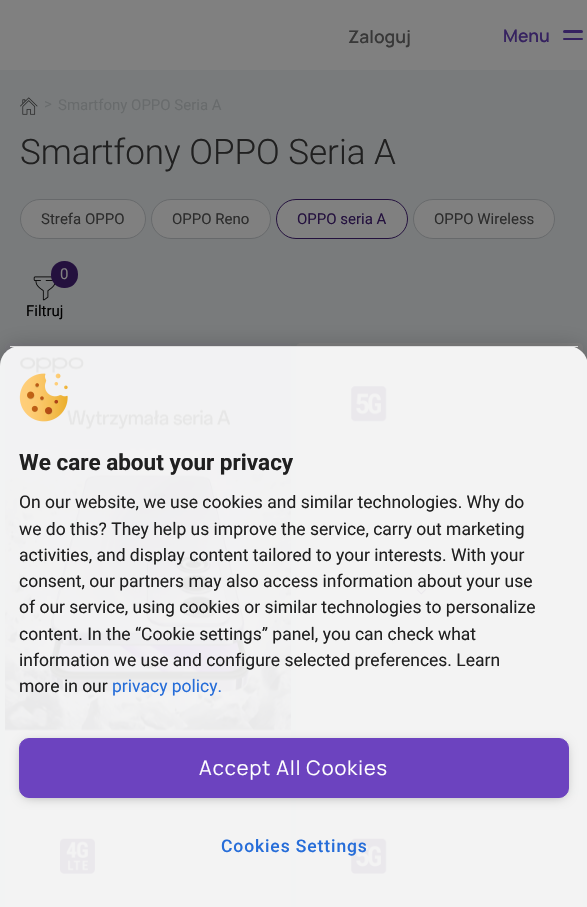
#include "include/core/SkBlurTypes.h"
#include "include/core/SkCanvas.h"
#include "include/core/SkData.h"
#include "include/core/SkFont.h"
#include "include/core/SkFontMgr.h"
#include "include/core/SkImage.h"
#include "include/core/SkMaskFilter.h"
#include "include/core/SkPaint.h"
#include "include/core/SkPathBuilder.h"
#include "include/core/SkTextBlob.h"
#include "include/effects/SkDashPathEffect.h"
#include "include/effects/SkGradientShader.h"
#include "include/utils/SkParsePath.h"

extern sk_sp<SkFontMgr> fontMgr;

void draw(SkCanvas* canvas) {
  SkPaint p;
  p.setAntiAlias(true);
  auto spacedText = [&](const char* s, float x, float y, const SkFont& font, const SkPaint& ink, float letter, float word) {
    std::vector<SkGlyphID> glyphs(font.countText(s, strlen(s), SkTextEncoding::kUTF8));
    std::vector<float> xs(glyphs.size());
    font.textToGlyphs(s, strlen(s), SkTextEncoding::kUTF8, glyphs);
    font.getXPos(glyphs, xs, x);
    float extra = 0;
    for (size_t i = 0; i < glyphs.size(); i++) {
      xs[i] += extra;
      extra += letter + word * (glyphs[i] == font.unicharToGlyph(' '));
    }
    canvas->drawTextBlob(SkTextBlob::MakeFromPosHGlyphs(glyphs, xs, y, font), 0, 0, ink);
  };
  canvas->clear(SkColorSetRGB(121, 123, 124));
  p.setColor(SkColorSetRGB(128, 128, 128));
  canvas->drawRect(SkRect::MakeLTRB(0, 0, 587, 70), p);
  p.setColor(SkColorSetRGB(54, 34, 96));
  canvas->drawRoundRect(SkRect::MakeLTRB(563, 38, 583, 40), 1, 1, p);
  canvas->drawRoundRect(SkRect::MakeLTRB(563, 30, 583, 33), 1.5f, 1.5f, p);
  canvas->drawImageRect(SkImages::DeferredFromEncodedData(SkData::MakeFromFileName("images/1.png")), SkRect::MakeLTRB(20, 97, 38, 115), SkSamplingOptions());
  p.setColor(SkColorSetRGB(128, 128, 128));
  canvas->drawRoundRect(SkRect::MakeLTRB(20.5f, 199.5f, 145.5f, 238.5f), 19.5f, 19.5f, p);
  p.setStyle(SkPaint::kStroke_Style);
  p.setStrokeWidth(1);
  p.setColor(SkColorSetRGB(103, 105, 107));
  canvas->drawRoundRect(SkRect::MakeLTRB(20.5f, 199.5f, 145.5f, 238.5f), 19.5f, 19.5f, p);
  p.setStyle(SkPaint::kFill_Style);
  p.setColor(SkColorSetRGB(128, 128, 128));
  canvas->drawRoundRect(SkRect::MakeLTRB(151.5f, 199.5f, 270.5f, 238.5f), 19.5f, 19.5f, p);
  p.setStyle(SkPaint::kStroke_Style);
  p.setColor(SkColorSetRGB(103, 105, 107));
  canvas->drawRoundRect(SkRect::MakeLTRB(151.5f, 199.5f, 270.5f, 238.5f), 19.5f, 19.5f, p);
  p.setStyle(SkPaint::kFill_Style);
  p.setColor(SkColorSetRGB(128, 128, 128));
  canvas->drawRoundRect(SkRect::MakeLTRB(276.5f, 199.5f, 407.5f, 238.5f), 19.5f, 19.5f, p);
  p.setStyle(SkPaint::kStroke_Style);
  p.setColor(SkColorSetRGB(36, 17, 62));
  canvas->drawRoundRect(SkRect::MakeLTRB(276.5f, 199.5f, 407.5f, 238.5f), 19.5f, 19.5f, p);
  p.setStyle(SkPaint::kFill_Style);
  p.setColor(SkColorSetRGB(128, 128, 128));
  canvas->drawRoundRect(SkRect::MakeLTRB(413.5f, 199.5f, 554.5f, 238.5f), 19.5f, 19.5f, p);
  p.setStyle(SkPaint::kStroke_Style);
  p.setColor(SkColorSetRGB(103, 105, 107));
  canvas->drawRoundRect(SkRect::MakeLTRB(413.5f, 199.5f, 554.5f, 238.5f), 19.5f, 19.5f, p);
  canvas->drawImageRect(SkImages::DeferredFromEncodedData(SkData::MakeFromFileName("images/2.png")), SkRect::MakeLTRB(33, 276, 56, 301), SkSamplingOptions());
  p.setStyle(SkPaint::kFill_Style);
  p.setColor(SkColorSetRGB(36, 17, 62));
  canvas->drawRoundRect(SkRect::MakeLTRB(51, 261, 78, 288), 13, 13, p);
  p.setColor(SkColorSetRGB(128, 128, 128));
  canvas->drawRoundRect(SkRect::MakeLTRB(5, 343, 291, 790), 5, 5, p);
  canvas->drawImageRect(SkImages::DeferredFromEncodedData(SkData::MakeFromFileName("images/3.png")), SkRect::MakeLTRB(5, 343, 291, 731), SkSamplingOptions());
  canvas->drawRoundRect(SkRect::MakeLTRB(296, 343, 583, 790), 5, 5, p);
  canvas->drawImageRect(SkImages::DeferredFromEncodedData(SkData::MakeFromFileName("images/4.png")), SkRect::MakeLTRB(351, 386, 387, 422), SkSamplingOptions());
  canvas->drawImageRect(SkImages::DeferredFromEncodedData(SkData::MakeFromFileName("images/5.png")), SkRect::MakeLTRB(416, 589, 426, 595), SkSamplingOptions());
  canvas->drawRoundRect(SkRect::MakeLTRB(5, 795, 291, 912), 5, 5, p);
  canvas->drawImageRect(SkImages::DeferredFromEncodedData(SkData::MakeFromFileName("images/6.png")), SkRect::MakeLTRB(60, 838, 95, 874), SkSamplingOptions());
  canvas->drawRoundRect(SkRect::MakeLTRB(296, 795, 583, 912), 5, 5, p);
  canvas->drawImageRect(SkImages::DeferredFromEncodedData(SkData::MakeFromFileName("images/7.png")), SkRect::MakeLTRB(351, 838, 387, 874), SkSamplingOptions());
  canvas->save();
  canvas->clipPath(SkPathBuilder(SkPathFillType::kEvenOdd).moveTo(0, 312).lineTo(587, 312).lineTo(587, 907).lineTo(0, 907).close().moveTo(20, 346).lineTo(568, 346).cubicTo(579, 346, 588, 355, 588, 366).lineTo(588, 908).lineTo(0, 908).lineTo(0, 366).cubicTo(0, 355, 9, 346, 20, 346).close().detach(), true);
  p.setColor(SkColorSetARGB(51, 0, 0, 0));
  p.setMaskFilter(SkMaskFilter::MakeBlur(kNormal_SkBlurStyle, 11));
  canvas->drawRoundRect(SkRect::MakeLTRB(0, 346, 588, 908), 20, 20, p);
  p.setMaskFilter(nullptr);
  canvas->restore();
  p.setColor(SkColorSetARGB(230, 255, 255, 255));
  canvas->drawPath(SkPathBuilder().moveTo(20, 346).lineTo(568, 346).cubicTo(579, 346, 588, 355, 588, 366).lineTo(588, 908).lineTo(0, 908).lineTo(0, 366).cubicTo(0, 355, 9, 346, 20, 346).close().detach(), p);
  p.setColor(SkColorSetRGB(221, 221, 221));
  canvas->drawRect(SkRect::MakeLTRB(10, 346, 578, 347), p);
  canvas->drawImageRect(SkImages::DeferredFromEncodedData(SkData::MakeFromFileName("images/8.png")), SkRect::MakeLTRB(19, 373, 68, 422), SkSamplingOptions());
  p.setColor(SkColorSetRGB(153, 153, 153));
  p.setMaskFilter(SkMaskFilter::MakeBlur(kNormal_SkBlurStyle, 6));
  canvas->drawRoundRect(SkRect::MakeLTRB(23, 744, 565, 796), 6, 6, p);
  p.setMaskFilter(nullptr);
  p.setColor(SkColorSetRGB(108, 67, 191));
  canvas->drawRoundRect(SkRect::MakeLTRB(19.5f, 738.5f, 568.5f, 797.5f), 9.5f, 9.5f, p);
  p.setStyle(SkPaint::kStroke_Style);
  canvas->drawRoundRect(SkRect::MakeLTRB(19.5f, 738.5f, 568.5f, 797.5f), 9.5f, 9.5f, p);
  SkFont font1(fontMgr->matchFamilyStyle("Manrope", SkFontStyle(600, SkFontStyle::kNormal_Width, SkFontStyle::kUpright_Slant)), 17.5f);
  font1.setSubpixel(true);
  p.setStyle(SkPaint::kFill_Style);
  p.setColor(SkColorSetRGB(56, 56, 56));
  canvas->drawString("Zaloguj", 348, 43, font1, p);
  p.setColor(SkColorSetRGB(54, 34, 96));
  canvas->drawString("Menu", 503, 42, font1, p);
  SkFont font2(fontMgr->matchFamilyStyle("Roboto", SkFontStyle::Normal()), 15);
  font2.setSubpixel(true);
  p.setColor(SkColorSetRGB(104, 107, 108));
  canvas->drawString(">", 44, 109, font2, p);
  canvas->drawString("Smartfony OPPO Seria A", 58, 110, font2, p);
  SkFont font3(fontMgr->matchFamilyStyle("Roboto", SkFontStyle(300, SkFontStyle::kNormal_Width, SkFontStyle::kUpright_Slant)), 35);
  font3.setSubpixel(true);
  p.setColor(SkColorSetRGB(32, 32, 32));
  canvas->drawString("Smartfony OPPO Seria A", 20, 164, font3, p);
  p.setColor(SkColorSetRGB(44, 44, 44));
  canvas->drawString("Strefa OPPO", 41, 224, font2, p);
  canvas->drawString("OPPO Reno", 172, 224, font2, p);
  p.setColor(SkColorSetRGB(36, 17, 62));
  canvas->drawString("OPPO seria A", 297, 224, font2, p);
  p.setColor(SkColorSetRGB(44, 44, 44));
  canvas->drawString("OPPO Wireless", 434, 224, font2, p);
  p.setColor(SkColorSetRGB(128, 128, 128));
  canvas->drawString("0", 60, 279, font2, p);
  p.setColor(SK_ColorBLACK);
  canvas->drawString("Filtruj", 26, 316, font2, p);
  SkFont font4(fontMgr->matchFamilyStyle("Roboto", SkFontStyle::Bold()), 22.5f);
  font4.setSubpixel(true);
  p.setColor(SkColorSetRGB(32, 32, 32));
  canvas->drawString("We care about your privacy", 19, 470, font4, p);
  SkFont font5(fontMgr->matchFamilyStyle("Roboto", SkFontStyle::Normal()), 17.5f);
  font5.setSubpixel(true);
  canvas->drawString("On our website, we use cookies and similar technologies. Why do", 19, 508, font5, p);
  canvas->drawString("we do this? They help us improve the service, carry out marketing", 19, 535, font5, p);
  canvas->drawString("activities, and display content tailored to your interests. With your", 19, 561, font5, p);
  canvas->drawString("consent, our partners may also access information about your use", 19, 587, font5, p);
  canvas->drawString("of our service, using cookies or similar technologies to personalize", 19, 613, font5, p);
  canvas->drawString("content. In the “Cookie settings” panel, you can check what", 19, 640, font5, p);
  canvas->drawString("information we use and configure selected preferences. Learn", 19, 666, font5, p);
  canvas->drawString("more in our", 19, 692, font5, p);
  p.setColor(SkColorSetRGB(38, 109, 217));
  canvas->drawString("privacy policy.", 112, 692, font5, p);
  SkFont font6(fontMgr->matchFamilyStyle("Manrope", SkFontStyle::Normal()), 20);
  font6.setSubpixel(true);
  p.setColor(SK_ColorWHITE);
  spacedText("Accept All Cookies", 199, 775, font6, p, 1, 0);
  SkFont font7(fontMgr->matchFamilyStyle("Roboto", SkFontStyle(500, SkFontStyle::kNormal_Width, SkFontStyle::kUpright_Slant)), 17.5f);
  font7.setSubpixel(true);
  p.setColor(SkColorSetRGB(38, 109, 217));
  spacedText("Cookies Settings", 221, 852, font7, p, 0.9f, 0);
}
